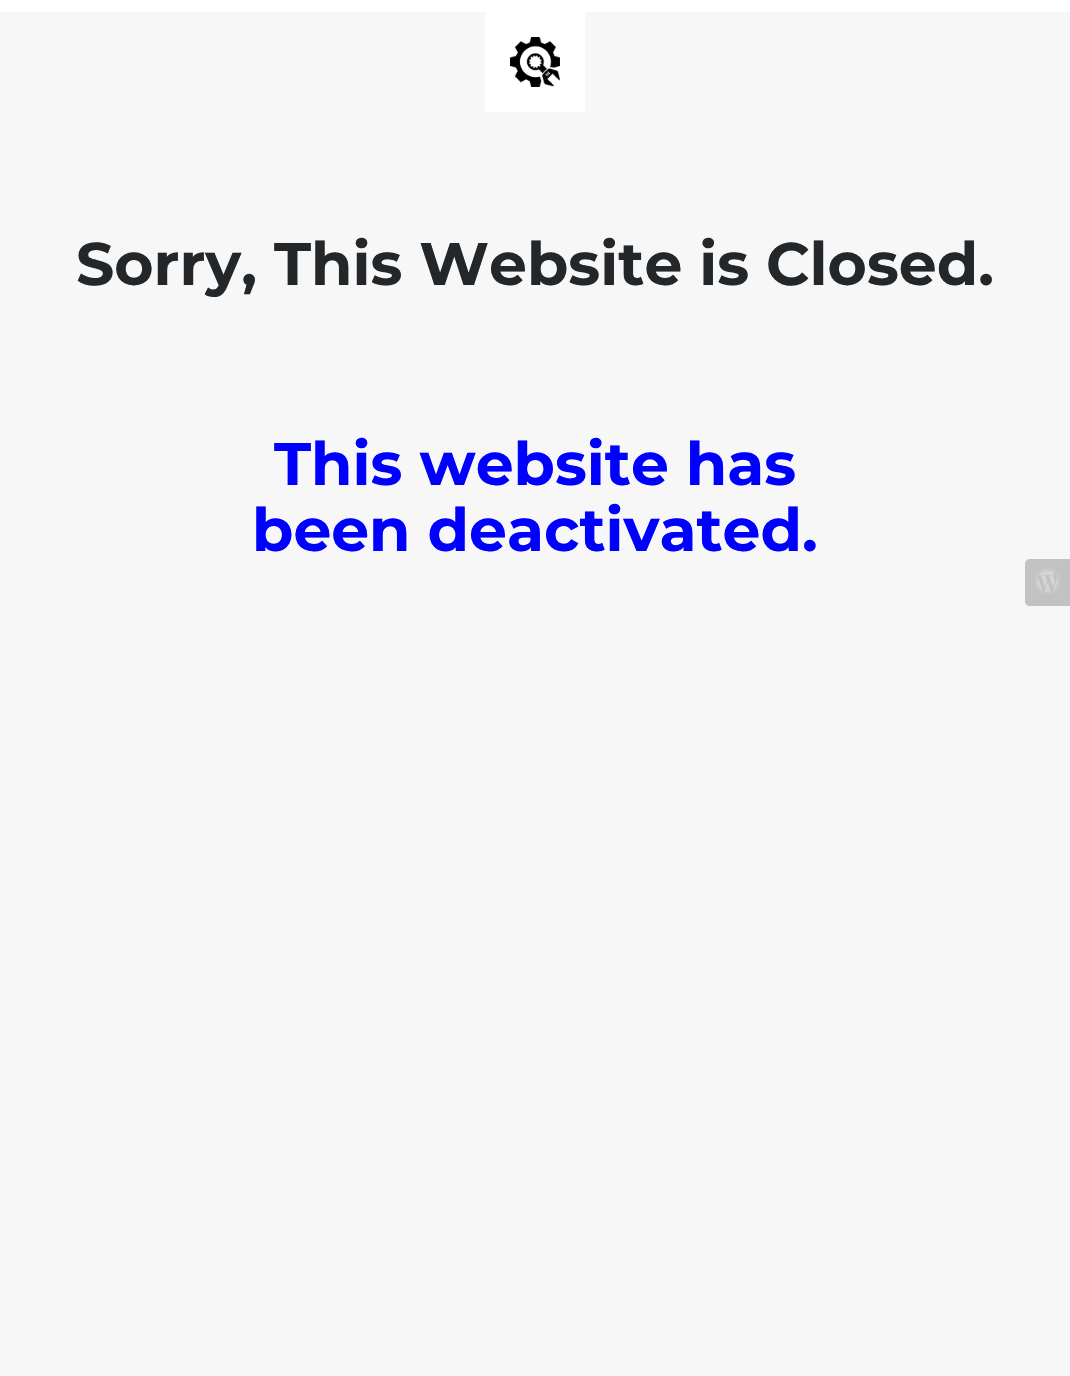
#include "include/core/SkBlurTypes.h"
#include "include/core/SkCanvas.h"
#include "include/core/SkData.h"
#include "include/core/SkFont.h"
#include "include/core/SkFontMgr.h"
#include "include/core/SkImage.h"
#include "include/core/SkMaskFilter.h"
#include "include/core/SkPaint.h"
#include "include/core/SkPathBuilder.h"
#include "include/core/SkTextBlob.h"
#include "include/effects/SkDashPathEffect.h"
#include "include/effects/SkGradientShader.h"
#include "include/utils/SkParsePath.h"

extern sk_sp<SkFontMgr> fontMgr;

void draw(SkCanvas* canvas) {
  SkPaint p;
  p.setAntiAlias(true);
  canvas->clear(SkColorSetRGB(247, 247, 247));
  p.setColor(SK_ColorWHITE);
  canvas->drawRect(SkRect::MakeLTRB(0, 0, 1070, 12), p);
  canvas->drawRect(SkRect::MakeLTRB(485, 12, 585, 112), p);
  canvas->drawImageRect(SkImages::DeferredFromEncodedData(SkData::MakeFromFileName("images/1.png")), SkRect::MakeLTRB(510, 37, 560, 87), SkSamplingOptions());
  p.setColor(SkColorSetRGB(194, 194, 194));
  canvas->drawPath(SkPathBuilder().moveTo(1030, 559).lineTo(1070, 559).lineTo(1070, 606).lineTo(1030, 606).cubicTo(1027, 606, 1025, 604, 1025, 601).lineTo(1025, 564).cubicTo(1025, 561, 1027, 559, 1030, 559).close().detach(), p);
  canvas->drawImageRect(SkImages::DeferredFromEncodedData(SkData::MakeFromFileName("images/2.png")), SkRect::MakeLTRB(1035, 568, 1060, 594), SkSamplingOptions());
  SkFont font1(fontMgr->matchFamilyStyle("Montserrat", SkFontStyle::Bold()), 60);
  font1.setSubpixel(true);
  p.setColor(SkColorSetRGB(35, 39, 42));
  canvas->drawString("Sorry, This Website is Closed.", 76, 285, font1, p);
  p.setColor(SkColorSetRGB(0, 0, 255));
  canvas->drawString("This website has", 274, 485, font1, p);
  canvas->drawString("been deactivated.", 252, 551, font1, p);
}
